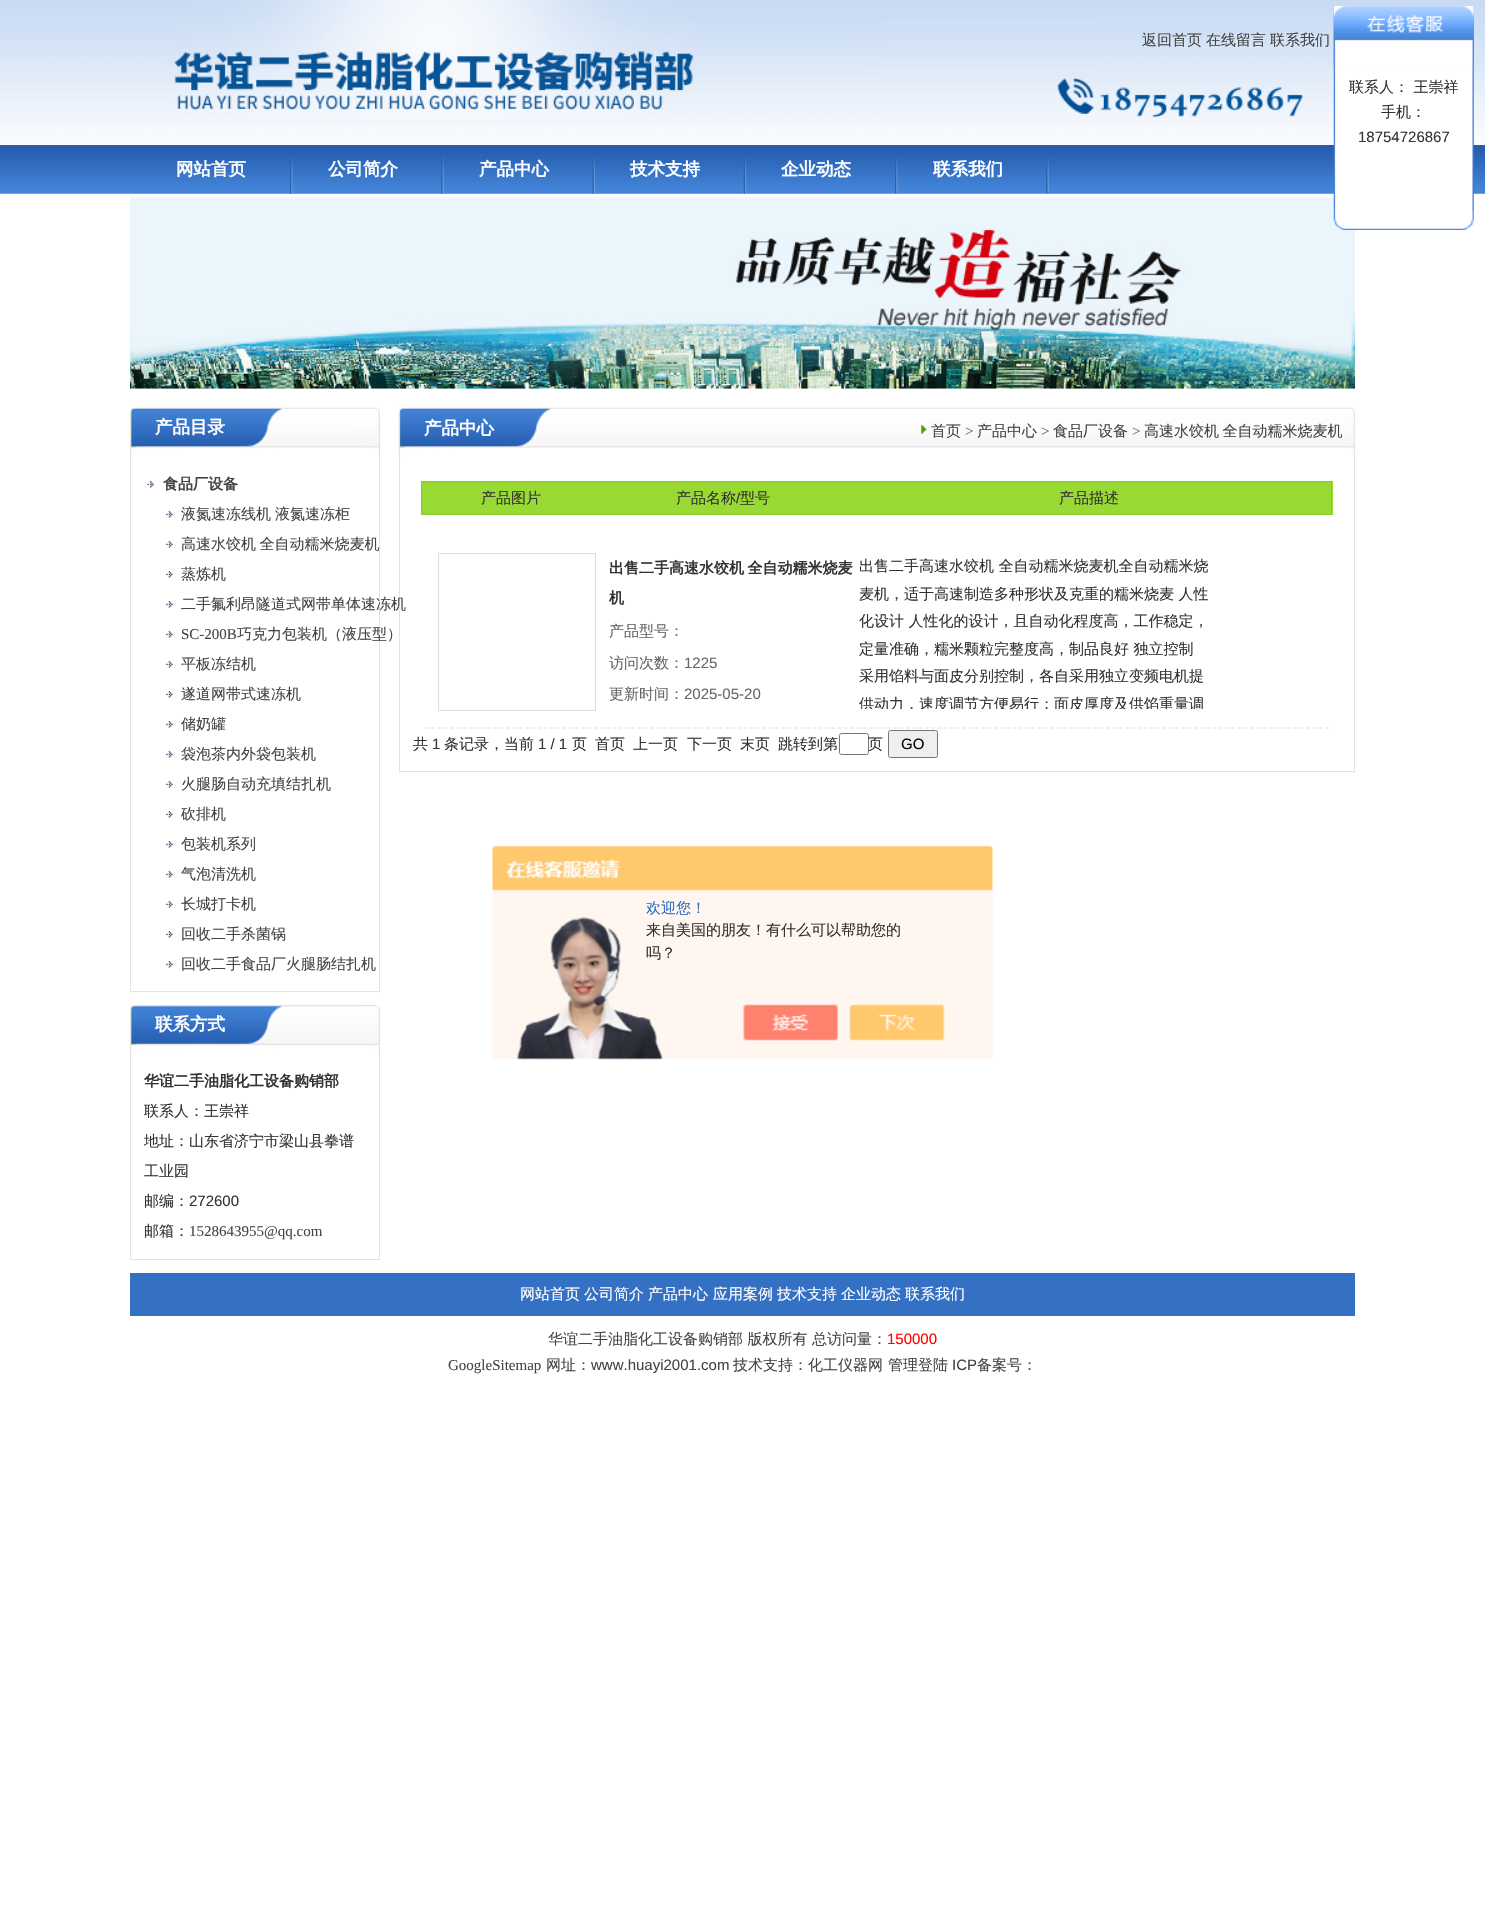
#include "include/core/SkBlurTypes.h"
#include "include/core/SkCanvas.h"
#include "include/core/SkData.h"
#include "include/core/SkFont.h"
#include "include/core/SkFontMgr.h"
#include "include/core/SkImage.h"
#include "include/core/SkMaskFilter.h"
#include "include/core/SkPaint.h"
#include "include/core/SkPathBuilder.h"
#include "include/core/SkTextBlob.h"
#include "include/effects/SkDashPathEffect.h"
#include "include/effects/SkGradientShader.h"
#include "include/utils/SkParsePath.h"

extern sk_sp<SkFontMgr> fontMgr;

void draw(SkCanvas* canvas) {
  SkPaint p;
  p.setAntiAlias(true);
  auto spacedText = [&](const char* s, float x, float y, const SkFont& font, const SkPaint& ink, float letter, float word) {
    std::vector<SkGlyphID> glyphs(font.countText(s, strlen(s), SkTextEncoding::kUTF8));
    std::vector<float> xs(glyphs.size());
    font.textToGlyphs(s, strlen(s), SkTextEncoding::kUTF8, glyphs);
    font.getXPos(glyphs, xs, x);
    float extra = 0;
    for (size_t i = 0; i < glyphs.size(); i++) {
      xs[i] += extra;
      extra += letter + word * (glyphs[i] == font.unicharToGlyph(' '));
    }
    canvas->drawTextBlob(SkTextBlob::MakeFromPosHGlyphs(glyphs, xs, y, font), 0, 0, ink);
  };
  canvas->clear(SK_ColorWHITE);
  canvas->drawImageRect(SkImages::DeferredFromEncodedData(SkData::MakeFromFileName("images/1.png")), SkRect::MakeLTRB(0, 0, 1485, 145), SkSamplingOptions());
  canvas->drawImageRect(SkImages::DeferredFromEncodedData(SkData::MakeFromFileName("images/2.png")), SkRect::MakeLTRB(174, 0, 1094, 119), SkSamplingOptions());
  canvas->drawImageRect(SkImages::DeferredFromEncodedData(SkData::MakeFromFileName("images/3.png")), SkRect::MakeLTRB(1100, 87, 1303, 118), SkSamplingOptions());
  canvas->drawImageRect(SkImages::DeferredFromEncodedData(SkData::MakeFromFileName("images/4.png")), SkRect::MakeLTRB(1333, 6, 1474, 68), SkSamplingOptions());
  canvas->drawImageRect(SkImages::DeferredFromEncodedData(SkData::MakeFromFileName("images/8.png")), SkRect::MakeLTRB(0, 145, 1485, 194), SkSamplingOptions());
  canvas->drawImageRect(SkImages::DeferredFromEncodedData(SkData::MakeFromFileName("images/13.png")), SkRect::MakeLTRB(130, 197, 1355, 389), SkSamplingOptions());
  canvas->drawImageRect(SkImages::DeferredFromEncodedData(SkData::MakeFromFileName("images/6.png")), SkRect::MakeLTRB(1333, 67, 1474, 210), SkSamplingOptions());
  canvas->drawImageRect(SkImages::DeferredFromEncodedData(SkData::MakeFromFileName("images/5.png")), SkRect::MakeLTRB(1333, 6, 1474, 68), SkSamplingOptions());
  canvas->drawImageRect(SkImages::DeferredFromEncodedData(SkData::MakeFromFileName("images/7.png")), SkRect::MakeLTRB(1333, 210, 1474, 230), SkSamplingOptions());
  canvas->drawImageRect(SkImages::DeferredFromEncodedData(SkData::MakeFromFileName("images/9.png")), SkRect::MakeLTRB(290, 156, 293, 194), SkSamplingOptions());
  canvas->drawImageRect(SkImages::DeferredFromEncodedData(SkData::MakeFromFileName("images/10.png")), SkRect::MakeLTRB(441, 155, 444, 194), SkSamplingOptions());
  canvas->drawImageRect(SkImages::DeferredFromEncodedData(SkData::MakeFromFileName("images/11.png")), SkRect::MakeLTRB(592, 155, 595, 194), SkSamplingOptions());
  canvas->drawImageRect(SkImages::DeferredFromEncodedData(SkData::MakeFromFileName("images/12.png")), SkRect::MakeLTRB(743, 155, 747, 194), SkSamplingOptions());
  canvas->drawImageRect(SkImages::DeferredFromEncodedData(SkData::MakeFromFileName("images/9.png")), SkRect::MakeLTRB(895, 156, 898, 194), SkSamplingOptions());
  canvas->drawImageRect(SkImages::DeferredFromEncodedData(SkData::MakeFromFileName("images/10.png")), SkRect::MakeLTRB(1046, 155, 1049, 194), SkSamplingOptions());
  canvas->drawImageRect(SkImages::DeferredFromEncodedData(SkData::MakeFromFileName("images/14.png")), SkRect::MakeLTRB(130, 407, 380, 457), SkSamplingOptions());
  p.setColor(SkColorSetRGB(227, 227, 227));
  canvas->drawRect(SkRect::MakeLTRB(379, 456, 380, 993), p);
  canvas->drawRect(SkRect::MakeLTRB(130, 991, 380, 992), p);
  canvas->drawRect(SkRect::MakeLTRB(130, 456, 131, 993), p);
  canvas->drawImageRect(SkImages::DeferredFromEncodedData(SkData::MakeFromFileName("images/15.png")), SkRect::MakeLTRB(147, 481, 154, 488), SkSamplingOptions());
  canvas->drawImageRect(SkImages::DeferredFromEncodedData(SkData::MakeFromFileName("images/16.png")), SkRect::MakeLTRB(166, 511, 173, 518), SkSamplingOptions());
  canvas->drawImageRect(SkImages::DeferredFromEncodedData(SkData::MakeFromFileName("images/16.png")), SkRect::MakeLTRB(166, 541, 173, 548), SkSamplingOptions());
  canvas->drawImageRect(SkImages::DeferredFromEncodedData(SkData::MakeFromFileName("images/16.png")), SkRect::MakeLTRB(166, 571, 173, 578), SkSamplingOptions());
  canvas->drawImageRect(SkImages::DeferredFromEncodedData(SkData::MakeFromFileName("images/16.png")), SkRect::MakeLTRB(166, 601, 173, 608), SkSamplingOptions());
  canvas->drawImageRect(SkImages::DeferredFromEncodedData(SkData::MakeFromFileName("images/16.png")), SkRect::MakeLTRB(166, 631, 173, 638), SkSamplingOptions());
  canvas->drawImageRect(SkImages::DeferredFromEncodedData(SkData::MakeFromFileName("images/16.png")), SkRect::MakeLTRB(166, 661, 173, 668), SkSamplingOptions());
  canvas->drawImageRect(SkImages::DeferredFromEncodedData(SkData::MakeFromFileName("images/16.png")), SkRect::MakeLTRB(166, 691, 173, 698), SkSamplingOptions());
  canvas->drawImageRect(SkImages::DeferredFromEncodedData(SkData::MakeFromFileName("images/16.png")), SkRect::MakeLTRB(166, 721, 173, 728), SkSamplingOptions());
  canvas->drawImageRect(SkImages::DeferredFromEncodedData(SkData::MakeFromFileName("images/16.png")), SkRect::MakeLTRB(166, 751, 173, 758), SkSamplingOptions());
  canvas->drawImageRect(SkImages::DeferredFromEncodedData(SkData::MakeFromFileName("images/17.png")), SkRect::MakeLTRB(166, 781, 173, 788), SkSamplingOptions());
  canvas->drawImageRect(SkImages::DeferredFromEncodedData(SkData::MakeFromFileName("images/16.png")), SkRect::MakeLTRB(166, 811, 173, 818), SkSamplingOptions());
  canvas->drawImageRect(SkImages::DeferredFromEncodedData(SkData::MakeFromFileName("images/16.png")), SkRect::MakeLTRB(166, 841, 173, 848), SkSamplingOptions());
  canvas->drawImageRect(SkImages::DeferredFromEncodedData(SkData::MakeFromFileName("images/16.png")), SkRect::MakeLTRB(166, 871, 173, 878), SkSamplingOptions());
  canvas->drawImageRect(SkImages::DeferredFromEncodedData(SkData::MakeFromFileName("images/16.png")), SkRect::MakeLTRB(166, 901, 173, 908), SkSamplingOptions());
  canvas->drawImageRect(SkImages::DeferredFromEncodedData(SkData::MakeFromFileName("images/16.png")), SkRect::MakeLTRB(166, 931, 173, 938), SkSamplingOptions());
  canvas->drawImageRect(SkImages::DeferredFromEncodedData(SkData::MakeFromFileName("images/16.png")), SkRect::MakeLTRB(166, 961, 173, 968), SkSamplingOptions());
  canvas->drawImageRect(SkImages::DeferredFromEncodedData(SkData::MakeFromFileName("images/18.png")), SkRect::MakeLTRB(130, 1005, 380, 1054), SkSamplingOptions());
  canvas->drawRect(SkRect::MakeLTRB(379, 1054, 380, 1260), p);
  canvas->drawRect(SkRect::MakeLTRB(130, 1259, 380, 1260), p);
  canvas->drawRect(SkRect::MakeLTRB(130, 1054, 131, 1260), p);
  canvas->drawImageRect(SkImages::DeferredFromEncodedData(SkData::MakeFromFileName("images/19.png")), SkRect::MakeLTRB(398, 407, 1355, 457), SkSamplingOptions());
  canvas->drawImageRect(SkImages::DeferredFromEncodedData(SkData::MakeFromFileName("images/20.png")), SkRect::MakeLTRB(921, 425, 928, 434), SkSamplingOptions());
  canvas->drawRect(SkRect::MakeLTRB(1354, 456, 1355, 773), p);
  canvas->drawRect(SkRect::MakeLTRB(399, 771, 1355, 772), p);
  canvas->drawRect(SkRect::MakeLTRB(399, 456, 400, 773), p);
  p.setColor(SkColorSetRGB(152, 218, 51));
  canvas->drawRect(SkRect::MakeLTRB(422, 482, 1333, 514), p);
  p.setColor(SkColorSetRGB(137, 203, 37));
  canvas->drawRect(SkRect::MakeLTRB(421, 481, 1333, 482), p);
  canvas->drawRect(SkRect::MakeLTRB(1331, 481, 1332, 515), p);
  canvas->drawRect(SkRect::MakeLTRB(421, 514, 1333, 515), p);
  canvas->drawRect(SkRect::MakeLTRB(421, 481, 422, 515), p);
  p.setStyle(SkPaint::kStroke_Style);
  p.setStrokeWidth(1.2f);
  p.setColor(SkColorSetRGB(221, 221, 221));
  p.setPathEffect(SkDashPathEffect::Make({{3.75f, 2.5f}}, 0));
  canvas->drawPath(SkPathBuilder().moveTo(425, 728).lineTo(1329, 728).detach(), p);
  p.setPathEffect(nullptr);
  p.setStrokeWidth(1);
  canvas->drawRect(SkRect::MakeLTRB(438.5f, 553.5f, 595.5f, 710.5f), p);
  p.setColor(SkColorSetRGB(118, 118, 118));
  canvas->drawRoundRect(SkRect::MakeLTRB(839.5f, 733.5f, 868.5f, 754.5f), 2, 2, p);
  p.setStyle(SkPaint::kFill_Style);
  p.setColor(SkColorSetRGB(239, 239, 239));
  canvas->drawRoundRect(SkRect::MakeLTRB(888.5f, 730.5f, 937.5f, 757.5f), 2, 2, p);
  p.setStyle(SkPaint::kStroke_Style);
  p.setColor(SkColorSetRGB(118, 118, 118));
  canvas->drawRoundRect(SkRect::MakeLTRB(888.5f, 730.5f, 937.5f, 757.5f), 2, 2, p);
  canvas->drawImageRect(SkImages::DeferredFromEncodedData(SkData::MakeFromFileName("images/21.png")), SkRect::MakeLTRB(492, 846, 993, 1060), SkSamplingOptions());
  p.setStyle(SkPaint::kFill_Style);
  p.setColor(SkColorSetRGB(52, 113, 196));
  canvas->drawRect(SkRect::MakeLTRB(130, 1273, 1355, 1316), p);
  SkFont font1(fontMgr->matchFamilyStyle("WenQuanYi Zen Hei", SkFontStyle(500, SkFontStyle::kNormal_Width, SkFontStyle::kUpright_Slant)), 15);
  font1.setSubpixel(true);
  p.setColor(SkColorSetRGB(68, 68, 68));
  canvas->drawString("返回首页", 1142, 45, font1, p);
  canvas->drawString("在线留言", 1206, 45, font1, p);
  canvas->drawString("联系我们", 1270, 45, font1, p);
  p.setColor(SkColorSetRGB(51, 51, 51));
  canvas->drawString("联系人： 王崇祥", 1349, 92, font1, p);
  canvas->drawString("手机：", 1381, 117, font1, p);
  SkFont font2(fontMgr->matchFamilyStyle("Liberation Sans", SkFontStyle::Normal()), 15);
  font2.setSubpixel(true);
  canvas->drawString("18754726867", 1358, 142, font2, p);
  SkFont font3(fontMgr->matchFamilyStyle("WenQuanYi Zen Hei", SkFontStyle::Bold()), 17.5f);
  font3.setSubpixel(true);
  p.setColor(SK_ColorWHITE);
  canvas->drawString("网站首页", 176, 175, font3, p);
  canvas->drawString("公司简介", 328, 175, font3, p);
  canvas->drawString("产品中心", 479, 175, font3, p);
  canvas->drawString("技术支持", 630, 175, font3, p);
  canvas->drawString("企业动态", 781, 175, font3, p);
  canvas->drawString("联系我们", 933, 175, font3, p);
  canvas->drawString("产品目录", 155, 433, font3, p);
  SkFont font4(fontMgr->matchFamilyStyle("WenQuanYi Zen Hei", SkFontStyle::Bold()), 15);
  font4.setSubpixel(true);
  p.setColor(SkColorSetRGB(68, 68, 68));
  canvas->drawString("食品厂设备", 163, 489, font4, p);
  canvas->drawString("液氮速冻线机", 181, 519, font1, p);
  canvas->drawString("液氮速冻柜", 275, 519, font1, p);
  spacedText("高速水饺机 全自动糯米烧麦机", 181, 549, font1, p, 0, -1);
  canvas->drawString("蒸炼机", 181, 579, font1, p);
  canvas->drawString("二手氟利昂隧道式网带单体速冻机", 181, 609, font1, p);
  SkFont font5(fontMgr->matchFamilyStyle("Liberation Serif", SkFontStyle::Normal()), 15);
  font5.setSubpixel(true);
  canvas->drawString("SC-200B", 181, 639, font5, p);
  canvas->drawString("巧克力包装机（液压型）", 237, 639, font1, p);
  canvas->drawString("平板冻结机", 181, 669, font1, p);
  canvas->drawString("遂道网带式速冻机", 181, 699, font1, p);
  canvas->drawString("储奶罐", 181, 729, font1, p);
  canvas->drawString("袋泡茶内外袋包装机", 181, 759, font1, p);
  canvas->drawString("火腿肠自动充填结扎机", 181, 789, font1, p);
  canvas->drawString("砍排机", 181, 819, font1, p);
  canvas->drawString("包装机系列", 181, 849, font1, p);
  canvas->drawString("气泡清洗机", 181, 879, font1, p);
  canvas->drawString("长城打卡机", 181, 909, font1, p);
  canvas->drawString("回收二手杀菌锅", 181, 939, font1, p);
  canvas->drawString("回收二手食品厂火腿肠结扎机", 181, 969, font1, p);
  p.setColor(SK_ColorWHITE);
  canvas->drawString("联系方式", 155, 1030, font3, p);
  p.setColor(SkColorSetRGB(51, 51, 51));
  canvas->drawString("华谊二手油脂化工设备购销部", 144, 1086, font4, p);
  canvas->drawString("联系人：王崇祥", 144, 1116, font1, p);
  canvas->drawString("地址：山东省济宁市梁山县拳谱", 144, 1146, font1, p);
  canvas->drawString("工业园", 144, 1176, font1, p);
  canvas->drawString("邮编：", 144, 1206, font1, p);
  canvas->drawString("272600", 189, 1206, font2, p);
  canvas->drawString("邮箱：", 144, 1236, font1, p);
  p.setColor(SkColorSetRGB(68, 68, 68));
  canvas->drawString("1528643955@qq.com", 189, 1236, font5, p);
  p.setColor(SK_ColorWHITE);
  canvas->drawString("产品中心", 424, 434, font3, p);
  p.setColor(SkColorSetRGB(68, 68, 68));
  canvas->drawString("首页", 931, 436, font1, p);
  p.setColor(SkColorSetRGB(102, 102, 102));
  canvas->drawString(">", 965, 436, font5, p);
  p.setColor(SkColorSetRGB(68, 68, 68));
  canvas->drawString("产品中心", 977, 436, font1, p);
  p.setColor(SkColorSetRGB(102, 102, 102));
  canvas->drawString(">", 1041, 436, font5, p);
  p.setColor(SkColorSetRGB(68, 68, 68));
  canvas->drawString("食品厂设备", 1053, 436, font1, p);
  p.setColor(SkColorSetRGB(102, 102, 102));
  canvas->drawString(">", 1132, 436, font5, p);
  p.setColor(SkColorSetRGB(68, 68, 68));
  spacedText("高速水饺机 全自动糯米烧麦机", 1144, 436, font1, p, 0, -1);
  p.setColor(SkColorSetRGB(51, 51, 51));
  canvas->drawString("产品图片", 481, 503, font1, p);
  canvas->drawString("产品名称", 676, 503, font1, p);
  canvas->drawString("/", 736, 503, font2, p);
  canvas->drawString("型号", 740, 503, font1, p);
  canvas->drawString("产品描述", 1059, 503, font1, p);
  spacedText("出售二手高速水饺机 全自动糯米烧麦", 609, 573, font4, p, 0, -1);
  canvas->drawString("机", 609, 603, font4, p);
  p.setColor(SkColorSetRGB(102, 102, 102));
  canvas->drawString("产品型号：", 609, 636, font1, p);
  canvas->drawString("访问次数：", 609, 668, font1, p);
  canvas->drawString("1225", 684, 668, font2, p);
  canvas->drawString("更新时间：", 609, 699, font1, p);
  canvas->drawString("2025-05-20", 684, 699, font2, p);
  p.setColor(SkColorSetRGB(51, 51, 51));
  canvas->drawString("出售二手高速水饺机 全自动糯米烧麦机全自动糯米烧", 859, 571, font1, p);
  canvas->drawString("麦机，适于高速制造多种形状及克重的糯米烧麦 人性", 859, 599, font1, p);
  canvas->drawString("化设计 人性化的设计，且自动化程度高，工作稳定，", 859, 626, font1, p);
  canvas->drawString("定量准确，糯米颗粒完整度高，制品良好 独立控制", 859, 654, font1, p);
  canvas->drawString("采用馅料与面皮分别控制，各自采用独立变频电机提", 859, 681, font1, p);
  canvas->save();
  canvas->clipRect(SkRect::MakeLTRB(859, 553, 1209, 709));
  canvas->drawString("供动力，速度调节方便易行；面皮厚度及供馅重量调", 859, 709, font1, p);
  canvas->restore();
  canvas->drawString("共", 413, 749, font1, p);
  canvas->drawString("1", 432, 749, font2, p);
  canvas->drawString("条记录，当前", 444, 749, font1, p);
  canvas->drawString("1 / 1", 538, 749, font2, p);
  canvas->drawString("页", 572, 749, font1, p);
  canvas->drawString("首页", 595, 749, font1, p);
  canvas->drawString("上一页", 633, 749, font1, p);
  canvas->drawString("下一页", 687, 749, font1, p);
  canvas->drawString("末页", 740, 749, font1, p);
  canvas->drawString("跳转到第", 778, 749, font1, p);
  canvas->drawString("页", 868, 749, font1, p);
  p.setColor(SK_ColorBLACK);
  canvas->drawString("GO", 901, 749, font2, p);
  p.setColor(SkColorSetRGB(46, 110, 198));
  canvas->drawString("欢迎您！", 646, 913, font1, p);
  p.setColor(SkColorSetRGB(51, 51, 51));
  canvas->drawString("来自美国的朋友！有什么可以帮助您的", 646, 935, font1, p);
  canvas->drawString("吗？", 646, 958, font1, p);
  p.setColor(SK_ColorWHITE);
  canvas->drawString("网站首页", 520, 1299, font1, p);
  canvas->drawString("公司简介", 584, 1299, font1, p);
  canvas->drawString("产品中心", 648, 1299, font1, p);
  canvas->drawString("应用案例", 713, 1299, font1, p);
  canvas->drawString("技术支持", 777, 1299, font1, p);
  canvas->drawString("企业动态", 841, 1299, font1, p);
  canvas->drawString("联系我们", 905, 1299, font1, p);
  p.setColor(SkColorSetRGB(68, 68, 68));
  canvas->drawString("华谊二手油脂化工设备购销部 版权所有 总访问量：", 548, 1344, font1, p);
  p.setColor(SkColorSetRGB(255, 0, 0));
  canvas->drawString("150000", 887, 1344, font2, p);
  p.setColor(SkColorSetRGB(68, 68, 68));
  canvas->drawString("GoogleSitemap", 448, 1370, font5, p);
  canvas->drawString("网址：", 546, 1370, font1, p);
  canvas->drawString("www.huayi2001.com", 591, 1370, font2, p);
  canvas->drawString("技术支持：化工仪器网", 733, 1370, font1, p);
  canvas->drawString("管理登陆", 888, 1370, font1, p);
  canvas->drawString("ICP", 952, 1370, font2, p);
  canvas->drawString("备案号：", 977, 1370, font1, p);
}
